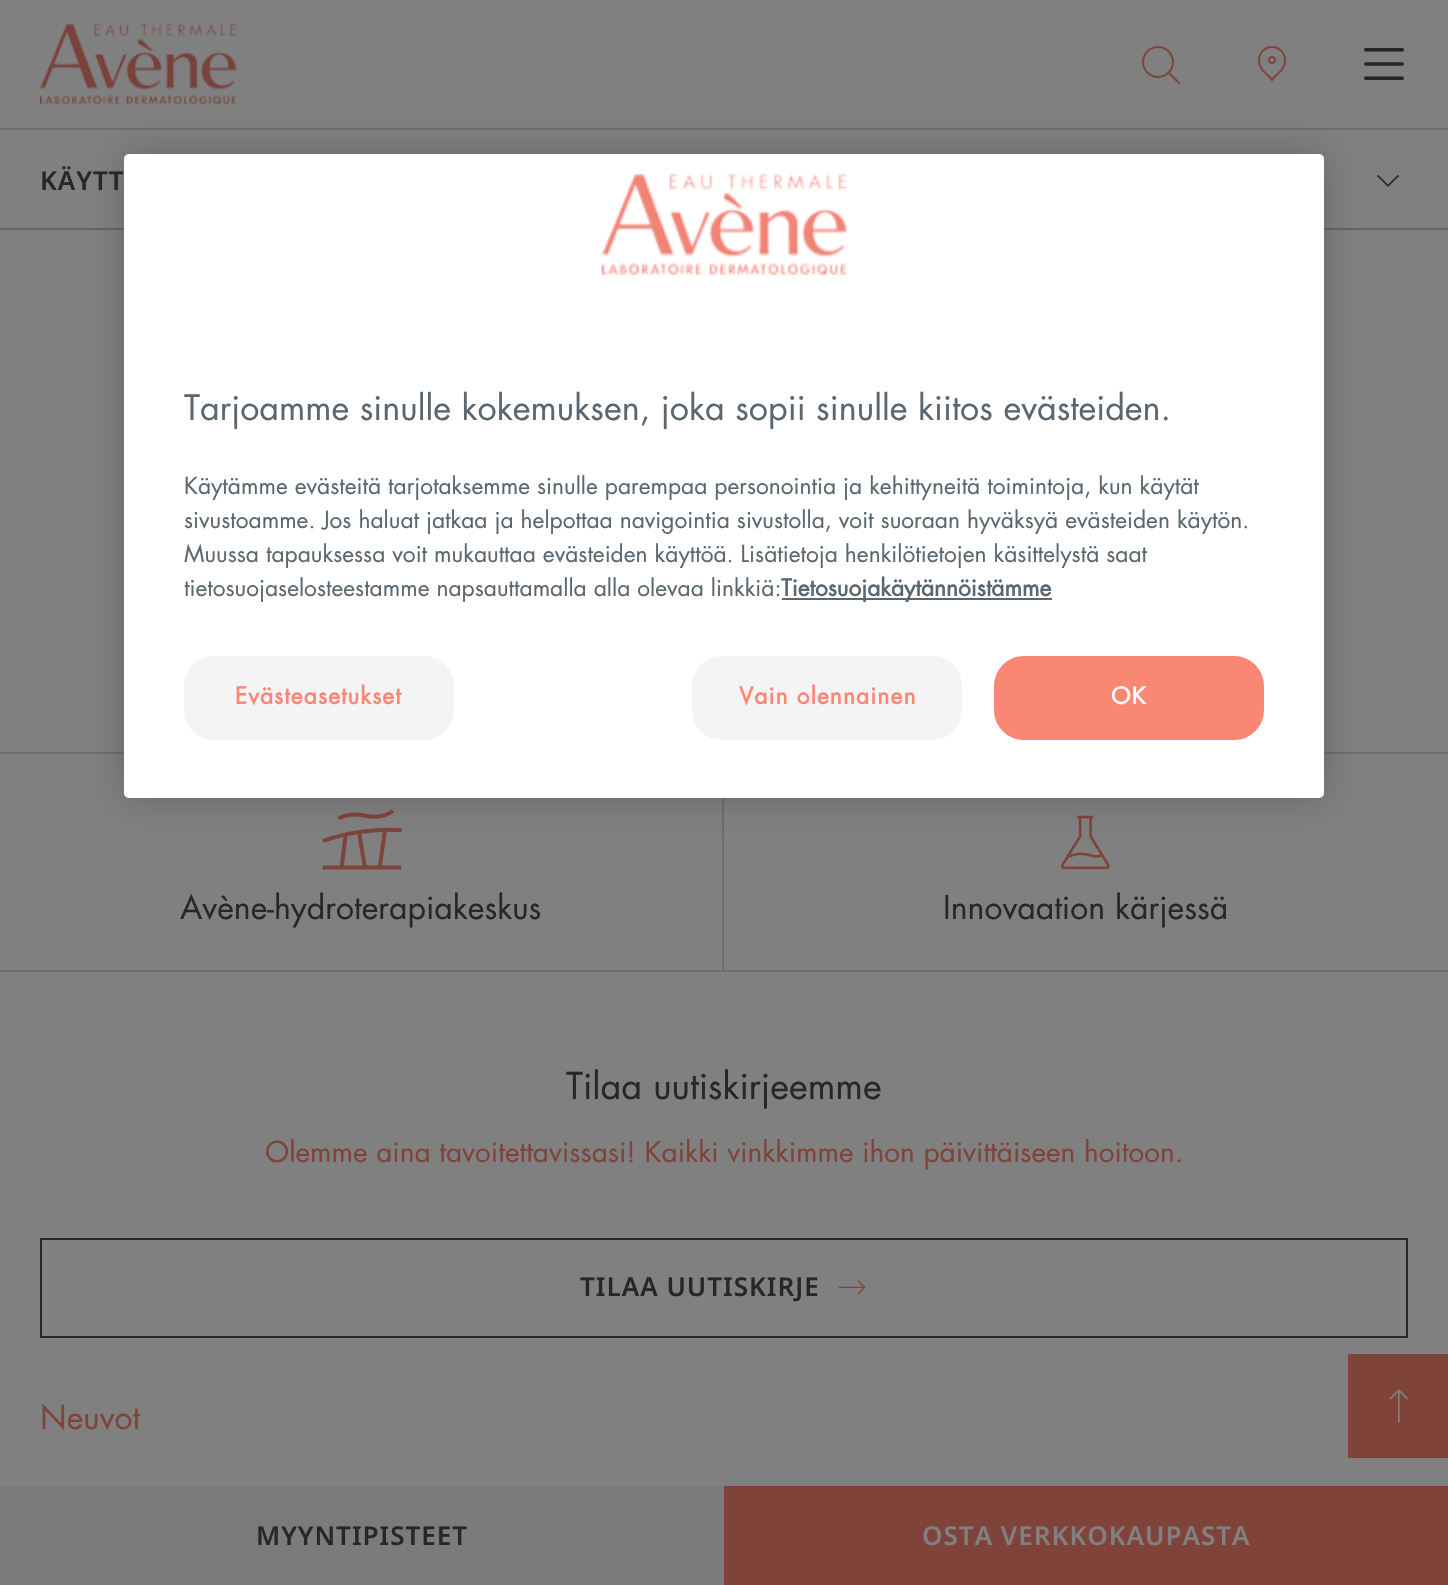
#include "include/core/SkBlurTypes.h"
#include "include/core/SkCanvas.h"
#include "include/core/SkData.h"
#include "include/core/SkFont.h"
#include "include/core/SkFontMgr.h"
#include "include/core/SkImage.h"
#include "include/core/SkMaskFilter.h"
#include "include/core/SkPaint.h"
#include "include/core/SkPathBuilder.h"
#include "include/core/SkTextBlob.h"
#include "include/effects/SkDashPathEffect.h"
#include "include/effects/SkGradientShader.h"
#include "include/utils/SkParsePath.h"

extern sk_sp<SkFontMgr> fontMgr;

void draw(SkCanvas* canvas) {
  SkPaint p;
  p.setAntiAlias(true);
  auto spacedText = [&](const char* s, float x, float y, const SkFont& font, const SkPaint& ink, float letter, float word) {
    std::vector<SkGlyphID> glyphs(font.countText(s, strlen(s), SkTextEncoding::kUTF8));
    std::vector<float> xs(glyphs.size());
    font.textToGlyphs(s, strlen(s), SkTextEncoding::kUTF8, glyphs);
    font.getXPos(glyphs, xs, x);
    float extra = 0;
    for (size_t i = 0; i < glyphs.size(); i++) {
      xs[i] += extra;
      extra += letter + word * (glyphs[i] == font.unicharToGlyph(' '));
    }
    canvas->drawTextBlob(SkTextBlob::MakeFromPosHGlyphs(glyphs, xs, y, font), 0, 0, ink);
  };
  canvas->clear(SkColorSetRGB(128, 128, 128));
  p.setColor(SkColorSetRGB(110, 110, 110));
  canvas->drawRect(SkRect::MakeLTRB(0, 128, 1448, 130), p);
  canvas->drawImageRect(SkImages::DeferredFromEncodedData(SkData::MakeFromFileName("images/1.png")), SkRect::MakeLTRB(40, 24, 237, 104), SkSamplingOptions());
  canvas->drawImageRect(SkImages::DeferredFromEncodedData(SkData::MakeFromFileName("images/2.png")), SkRect::MakeLTRB(1142, 46, 1181, 85), SkSamplingOptions());
  canvas->drawImageRect(SkImages::DeferredFromEncodedData(SkData::MakeFromFileName("images/3.png")), SkRect::MakeLTRB(1258, 46, 1286, 82), SkSamplingOptions());
  canvas->drawImageRect(SkImages::DeferredFromEncodedData(SkData::MakeFromFileName("images/4.png")), SkRect::MakeLTRB(1364, 48, 1404, 80), SkSamplingOptions());
  p.setColor(SkColorSetRGB(101, 101, 101));
  canvas->drawRect(SkRect::MakeLTRB(0, 228, 1448, 230), p);
  canvas->drawImageRect(SkImages::DeferredFromEncodedData(SkData::MakeFromFileName("images/5.png")), SkRect::MakeLTRB(1377, 175, 1399, 187), SkSamplingOptions());
  p.setColor(SkColorSetRGB(123, 123, 123));
  canvas->drawRect(SkRect::MakeLTRB(0, 1486, 724, 1585), p);
  p.setColor(SkColorSetRGB(128, 67, 58));
  canvas->drawRect(SkRect::MakeLTRB(724, 1486, 1448, 1585), p);
  canvas->drawRect(SkRect::MakeLTRB(1348, 1354, 1448, 1458), p);
  canvas->drawImageRect(SkImages::DeferredFromEncodedData(SkData::MakeFromFileName("images/6.png")), SkRect::MakeLTRB(1389, 1389, 1408, 1423), SkSamplingOptions());
  p.setColor(SkColorSetRGB(110, 110, 110));
  canvas->drawRect(SkRect::MakeLTRB(0, 752, 1448, 754), p);
  canvas->drawRect(SkRect::MakeLTRB(722, 798, 724, 970), p);
  canvas->drawImageRect(SkImages::DeferredFromEncodedData(SkData::MakeFromFileName("images/8.png")), SkRect::MakeLTRB(322, 809, 402, 870), SkSamplingOptions());
  canvas->drawImageRect(SkImages::DeferredFromEncodedData(SkData::MakeFromFileName("images/9.png")), SkRect::MakeLTRB(1060, 815, 1110, 870), SkSamplingOptions());
  p.setColor(SkColorSetARGB(51, 0, 0, 0));
  p.setMaskFilter(SkMaskFilter::MakeBlur(kNormal_SkBlurStyle, 18));
  canvas->drawRoundRect(SkRect::MakeLTRB(124, 154, 1324, 798), 5, 5, p);
  p.setMaskFilter(nullptr);
  p.setColor(SK_ColorWHITE);
  canvas->drawRoundRect(SkRect::MakeLTRB(124, 154, 1324, 798), 5, 5, p);
  canvas->drawImageRect(SkImages::DeferredFromEncodedData(SkData::MakeFromFileName("images/7.png")), SkRect::MakeLTRB(601, 173, 848, 275), SkSamplingOptions());
  p.setColor(SkColorSetRGB(91, 103, 112));
  canvas->drawRect(SkRect::MakeLTRB(782, 598, 1052, 600), p);
  p.setColor(SkColorSetRGB(244, 244, 244));
  canvas->drawRoundRect(SkRect::MakeLTRB(185, 657, 453, 739), 29, 29, p);
  p.setStyle(SkPaint::kStroke_Style);
  p.setStrokeWidth(2);
  canvas->drawRoundRect(SkRect::MakeLTRB(185, 657, 453, 739), 29, 29, p);
  p.setStyle(SkPaint::kFill_Style);
  canvas->drawRoundRect(SkRect::MakeLTRB(693, 657, 961, 739), 29, 29, p);
  p.setStyle(SkPaint::kStroke_Style);
  canvas->drawRoundRect(SkRect::MakeLTRB(693, 657, 961, 739), 29, 29, p);
  p.setStyle(SkPaint::kFill_Style);
  p.setColor(SkColorSetRGB(250, 134, 116));
  canvas->drawRoundRect(SkRect::MakeLTRB(995, 657, 1263, 739), 29, 29, p);
  p.setStyle(SkPaint::kStroke_Style);
  canvas->drawRoundRect(SkRect::MakeLTRB(995, 657, 1263, 739), 29, 29, p);
  p.setStyle(SkPaint::kFill_Style);
  p.setColor(SkColorSetRGB(110, 110, 110));
  canvas->drawRect(SkRect::MakeLTRB(0, 970, 1448, 972), p);
  p.setStyle(SkPaint::kStroke_Style);
  p.setColor(SkColorSetRGB(39, 39, 39));
  canvas->drawRect(SkRect::MakeLTRB(41, 1239, 1407, 1337), p);
  canvas->drawImageRect(SkImages::DeferredFromEncodedData(SkData::MakeFromFileName("images/10.png")), SkRect::MakeLTRB(838, 1280, 866, 1295), SkSamplingOptions());
  SkFont font1(fontMgr->matchFamilyStyle("Noto Sans", SkFontStyle(600, SkFontStyle::kNormal_Width, SkFontStyle::kUpright_Slant)), 26);
  font1.setSubpixel(true);
  p.setStyle(SkPaint::kFill_Style);
  spacedText("KÄYTT", 40, 190, font1, p, 1, 0);
  spacedText("MYYNTIPISTEET", 256, 1545, font1, p, 1, 0);
  p.setColor(SkColorSetRGB(128, 128, 128));
  spacedText("OSTA VERKKOKAUPASTA", 922, 1545, font1, p, 1, 0);
  SkFont font2(fontMgr->matchFamilyStyle("Futura", SkFontStyle::Normal()), 34.15f);
  font2.setSubpixel(true);
  p.setColor(SkColorSetRGB(91, 103, 112));
  canvas->drawString("Tarjoamme sinulle kokemuksen, joka sopii sinulle kiitos evästeiden.", 184, 420, font2, p);
  SkFont font3(fontMgr->matchFamilyStyle("Futura", SkFontStyle::Normal()), 22.75f);
  font3.setSubpixel(true);
  canvas->drawString("Käytämme evästeitä tarjotaksemme sinulle parempaa personointia ja kehittyneitä toimintoja, kun käytät", 184, 494, font3, p);
  canvas->drawString("sivustoamme. Jos haluat jatkaa ja helpottaa navigointia sivustolla, voit suoraan hyväksyä evästeiden käytön.", 184, 528, font3, p);
  canvas->drawString("Muussa tapauksessa voit mukauttaa evästeiden käyttöä. Lisätietoja henkilötietojen käsittelystä saat", 184, 562, font3, p);
  canvas->drawString("tietosuojaselosteestamme napsauttamalla alla olevaa linkkiä:", 184, 596, font3, p);
  SkFont font4(fontMgr->matchFamilyStyle("Futura", SkFontStyle::Bold()), 22.75f);
  font4.setSubpixel(true);
  canvas->drawString("Tietosuojakäytännöistämme", 781, 596, font4, p);
  p.setColor(SkColorSetRGB(250, 134, 116));
  spacedText("Evästeasetukset", 235, 704, font4, p, 1.1f, 0);
  spacedText("Vain olennainen", 739, 704, font4, p, 1.1f, 0);
  p.setColor(SK_ColorWHITE);
  spacedText("OK", 1111, 704, font4, p, 1.1f, 0);
  SkFont font5(fontMgr->matchFamilyStyle("Futura", SkFontStyle::Normal()), 32);
  font5.setSubpixel(true);
  p.setColor(SkColorSetRGB(39, 39, 39));
  canvas->drawString("Avène-hydroterapiakeskus", 180, 919, font5, p);
  canvas->drawString("Innovaation kärjessä", 943, 919, font5, p);
  SkFont font6(fontMgr->matchFamilyStyle("Futura", SkFontStyle::Normal()), 36);
  font6.setSubpixel(true);
  canvas->drawString("Tilaa uutiskirjeemme", 566, 1099, font6, p);
  SkFont font7(fontMgr->matchFamilyStyle("Futura", SkFontStyle::Normal()), 28);
  font7.setSubpixel(true);
  p.setColor(SkColorSetRGB(128, 67, 58));
  canvas->drawString("Olemme aina tavoitettavissasi! Kaikki vinkkimme ihon päivittäiseen hoitoon.", 265, 1162, font7, p);
  p.setColor(SkColorSetRGB(39, 39, 39));
  spacedText("TILAA UUTISKIRJE", 580, 1296, font1, p, 1, 0);
  p.setColor(SkColorSetRGB(128, 67, 58));
  canvas->drawString("Neuvot", 40, 1429, font5, p);
}
